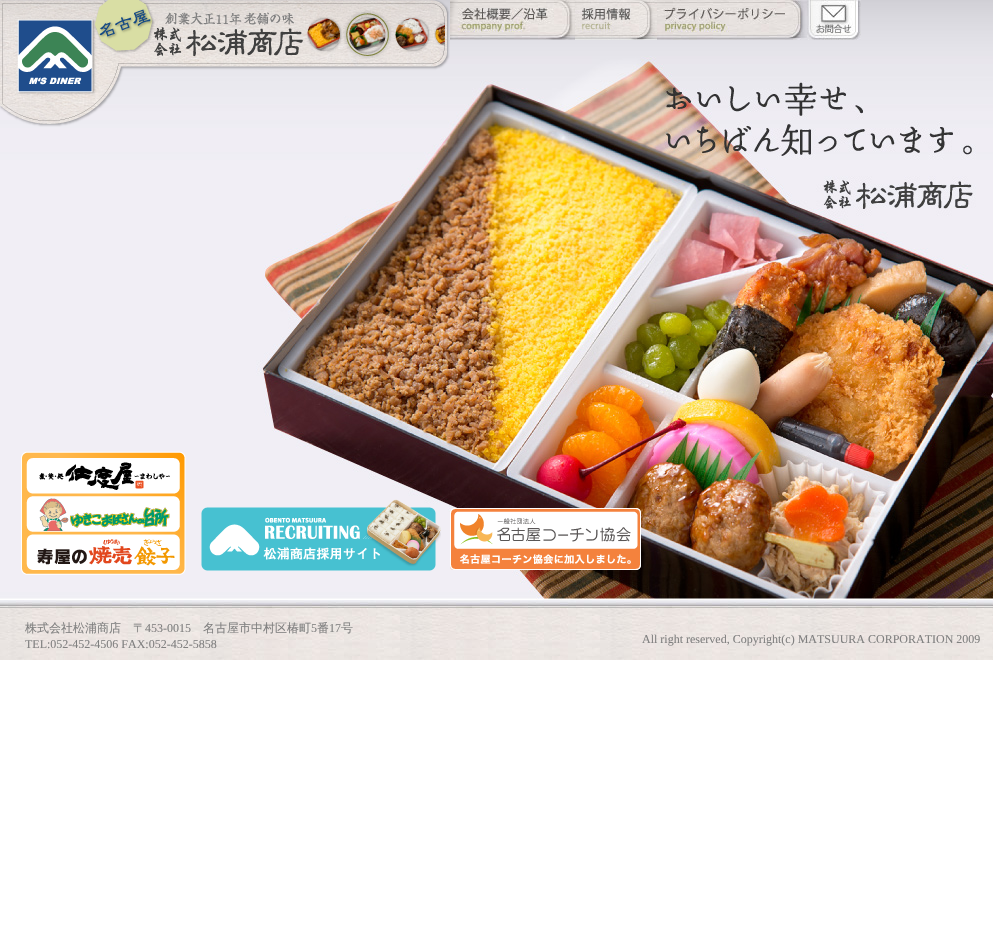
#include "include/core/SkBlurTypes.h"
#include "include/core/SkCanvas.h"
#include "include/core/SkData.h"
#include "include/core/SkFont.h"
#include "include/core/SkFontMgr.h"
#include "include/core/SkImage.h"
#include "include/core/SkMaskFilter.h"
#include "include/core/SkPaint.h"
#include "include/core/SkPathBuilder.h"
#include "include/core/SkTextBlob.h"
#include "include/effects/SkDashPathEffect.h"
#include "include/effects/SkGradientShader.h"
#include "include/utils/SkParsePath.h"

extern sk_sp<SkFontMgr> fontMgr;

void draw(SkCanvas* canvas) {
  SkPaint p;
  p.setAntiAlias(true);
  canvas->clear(SK_ColorWHITE);
  canvas->drawImageRect(SkImages::DeferredFromEncodedData(SkData::MakeFromFileName("images/1.png")), SkRect::MakeLTRB(0, 600, 993, 660), SkSamplingOptions());
  canvas->drawImageRect(SkImages::DeferredFromEncodedData(SkData::MakeFromFileName("images/2.png")), SkRect::MakeLTRB(0, 0, 993, 600), SkSamplingOptions());
  canvas->drawImageRect(SkImages::DeferredFromEncodedData(SkData::MakeFromFileName("images/3.png")), SkRect::MakeLTRB(0, 0, 450, 127), SkSamplingOptions());
  canvas->drawImageRect(SkImages::DeferredFromEncodedData(SkData::MakeFromFileName("images/4.png")), SkRect::MakeLTRB(450, 0, 575, 40), SkSamplingOptions());
  canvas->drawImageRect(SkImages::DeferredFromEncodedData(SkData::MakeFromFileName("images/5.png")), SkRect::MakeLTRB(575, 0, 657, 40), SkSamplingOptions());
  canvas->drawImageRect(SkImages::DeferredFromEncodedData(SkData::MakeFromFileName("images/6.png")), SkRect::MakeLTRB(657, 0, 807, 40), SkSamplingOptions());
  canvas->drawImageRect(SkImages::DeferredFromEncodedData(SkData::MakeFromFileName("images/7.png")), SkRect::MakeLTRB(807, 0, 861, 40), SkSamplingOptions());
  canvas->drawImageRect(SkImages::DeferredFromEncodedData(SkData::MakeFromFileName("images/8.png")), SkRect::MakeLTRB(21, 451, 186, 575), SkSamplingOptions());
  canvas->drawImageRect(SkImages::DeferredFromEncodedData(SkData::MakeFromFileName("images/9.png")), SkRect::MakeLTRB(201, 499, 441, 571), SkSamplingOptions());
  canvas->drawImageRect(SkImages::DeferredFromEncodedData(SkData::MakeFromFileName("images/10.png")), SkRect::MakeLTRB(450, 508, 641, 570), SkSamplingOptions());
  SkFont font1(fontMgr->matchFamilyStyle("WenQuanYi Zen Hei", SkFontStyle(500, SkFontStyle::kNormal_Width, SkFontStyle::kUpright_Slant)), 12);
  font1.setSubpixel(true);
  p.setColor(SkColorSetRGB(128, 128, 128));
  canvas->drawString("株式会社松浦商店　〒", 25, 632, font1, p);
  SkFont font2(fontMgr->matchFamilyStyle("Liberation Serif", SkFontStyle::Normal()), 12);
  font2.setSubpixel(true);
  canvas->drawString("453-0015", 145, 632, font2, p);
  canvas->drawString("名古屋市中村区椿町", 203, 632, font1, p);
  canvas->drawString("5", 311, 632, font2, p);
  canvas->drawString("番", 317, 632, font1, p);
  canvas->drawString("17", 329, 632, font2, p);
  canvas->drawString("号", 341, 632, font1, p);
  canvas->drawString("TEL:052-452-4506 FAX:052-452-5858", 25, 648, font2, p);
  canvas->drawString("All right reserved, Copyright(c) MATSUURA CORPORATION 2009", 642, 643, font2, p);
}
